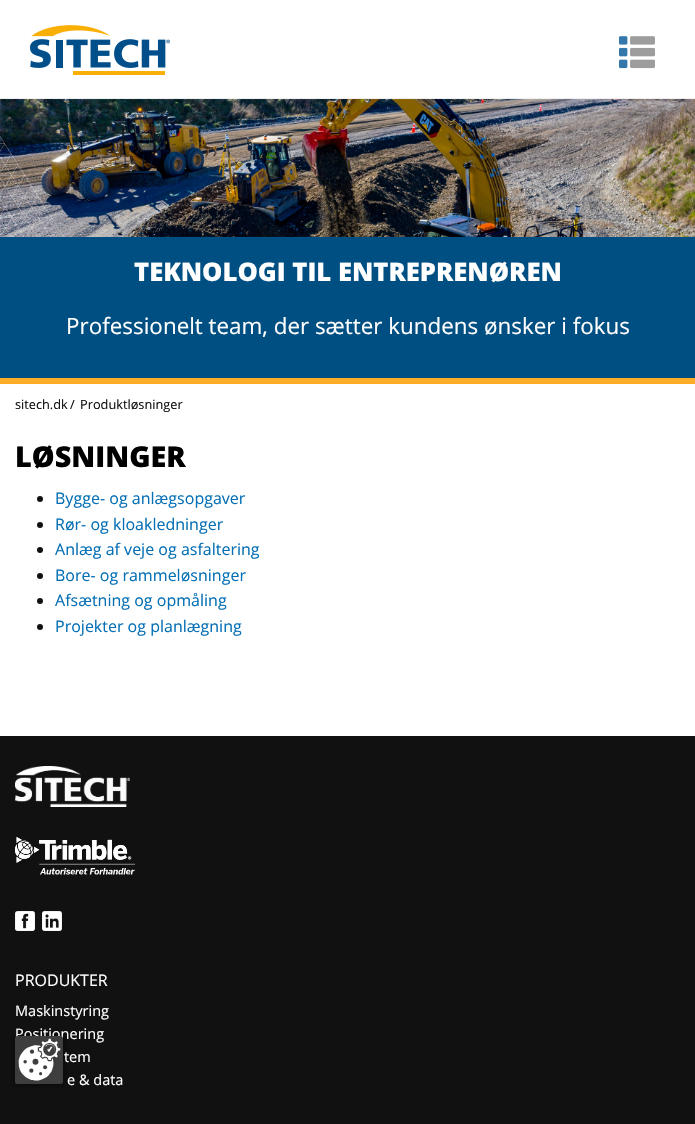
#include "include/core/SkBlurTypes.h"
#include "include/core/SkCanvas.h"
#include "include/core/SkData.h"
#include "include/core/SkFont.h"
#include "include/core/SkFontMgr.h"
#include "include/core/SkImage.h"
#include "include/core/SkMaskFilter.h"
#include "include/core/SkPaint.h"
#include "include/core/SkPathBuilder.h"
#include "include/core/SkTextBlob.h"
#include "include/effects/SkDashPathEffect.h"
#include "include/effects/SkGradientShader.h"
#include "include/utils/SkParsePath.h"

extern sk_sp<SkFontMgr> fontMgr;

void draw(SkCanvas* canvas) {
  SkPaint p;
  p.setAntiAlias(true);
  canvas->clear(SK_ColorWHITE);
  p.setColor(SkColorSetRGB(238, 238, 238));
  canvas->drawRect(SkRect::MakeLTRB(0, 98, 695, 99), p);
  canvas->drawImageRect(SkImages::DeferredFromEncodedData(SkData::MakeFromFileName("images/1.png")), SkRect::MakeLTRB(30, 25, 170, 75), SkSamplingOptions());
  canvas->drawImageRect(SkImages::DeferredFromEncodedData(SkData::MakeFromFileName("images/2.png")), SkRect::MakeLTRB(619, 36, 655, 69), SkSamplingOptions());
  p.setColor(SkColorSetRGB(251, 173, 38));
  canvas->drawRect(SkRect::MakeLTRB(0, 378, 695, 384), p);
  canvas->drawImageRect(SkImages::DeferredFromEncodedData(SkData::MakeFromFileName("images/3.png")), SkRect::MakeLTRB(0, 99, 695, 237), SkSamplingOptions());
  p.setColor(SkColorSetRGB(0, 79, 131));
  canvas->drawRect(SkRect::MakeLTRB(0, 237, 695, 378), p);
  p.setColor(SkColorSetRGB(17, 17, 17));
  canvas->drawCircle(40, 499, 3, p);
  canvas->drawCircle(40, 525, 3, p);
  canvas->drawCircle(40, 550, 3, p);
  canvas->drawCircle(40, 576, 3, p);
  canvas->drawCircle(40, 601, 3, p);
  canvas->drawCircle(40, 627, 3, p);
  canvas->drawRect(SkRect::MakeLTRB(0, 736, 695, 1124), p);
  canvas->drawImageRect(SkImages::DeferredFromEncodedData(SkData::MakeFromFileName("images/4.png")), SkRect::MakeLTRB(15, 766, 130, 807), SkSamplingOptions());
  canvas->drawImageRect(SkImages::DeferredFromEncodedData(SkData::MakeFromFileName("images/5.png")), SkRect::MakeLTRB(15, 837, 135, 875), SkSamplingOptions());
  canvas->drawImageRect(SkImages::DeferredFromEncodedData(SkData::MakeFromFileName("images/6.png")), SkRect::MakeLTRB(15, 911, 35, 931), SkSamplingOptions());
  canvas->drawImageRect(SkImages::DeferredFromEncodedData(SkData::MakeFromFileName("images/7.png")), SkRect::MakeLTRB(42, 911, 62, 931), SkSamplingOptions());
  p.setColor(SkColorSetARGB(128, 0, 0, 0));
  p.setMaskFilter(SkMaskFilter::MakeBlur(kNormal_SkBlurStyle, 3));
  canvas->drawRect(SkRect::MakeLTRB(14, 1035, 64, 1085), p);
  p.setMaskFilter(nullptr);
  SkFont font1(fontMgr->matchFamilyStyle("Open Sans", SkFontStyle(800, SkFontStyle::kNormal_Width, SkFontStyle::kUpright_Slant)), 25.6f);
  font1.setSubpixel(true);
  p.setColor(SK_ColorWHITE);
  canvas->drawString("TEKNOLOGI TIL ENTREPRENØREN", 134, 281, font1, p);
  SkFont font2(fontMgr->matchFamilyStyle("Open Sans", SkFontStyle::Normal()), 22.4f);
  font2.setSubpixel(true);
  canvas->drawString("Professionelt team, der sætter kundens ønsker i fokus", 66, 334, font2, p);
  SkFont font3(fontMgr->matchFamilyStyle("Open Sans", SkFontStyle::Normal()), 12.75f);
  font3.setSubpixel(true);
  p.setColor(SkColorSetRGB(17, 17, 17));
  canvas->drawString("sitech.dk", 15, 409, font3, p);
  canvas->drawString("/", 70, 409, font3, p);
  canvas->drawString("Produktløsninger", 80, 409, font3, p);
  SkFont font4(fontMgr->matchFamilyStyle("Open Sans", SkFontStyle(800, SkFontStyle::kNormal_Width, SkFontStyle::kUpright_Slant)), 28.75f);
  font4.setSubpixel(true);
  p.setColor(SK_ColorBLACK);
  canvas->drawString("LØSNINGER", 15, 467, font4, p);
  SkFont font5(fontMgr->matchFamilyStyle("Open Sans", SkFontStyle::Normal()), 16);
  font5.setSubpixel(true);
  p.setColor(SkColorSetRGB(4, 111, 181));
  canvas->drawString("Bygge- og anlægsopgaver", 55, 504, font5, p);
  canvas->drawString("Rør- og kloakledninger", 55, 530, font5, p);
  canvas->drawString("Anlæg af veje og asfaltering", 55, 555, font5, p);
  canvas->drawString("Bore- og rammeløsninger", 55, 581, font5, p);
  canvas->drawString("Afsætning og opmåling", 55, 606, font5, p);
  canvas->drawString("Projekter og planlægning", 55, 632, font5, p);
  p.setColor(SK_ColorWHITE);
  canvas->drawString("PRODUKTER", 15, 986, font5, p);
  SkFont font6(fontMgr->matchFamilyStyle("Open Sans", SkFontStyle::Normal()), 14.5f);
  font6.setSubpixel(true);
  canvas->drawString("Maskinstyring", 15, 1016, font6, p);
  canvas->drawString("Positionering", 15, 1039, font6, p);
  canvas->drawString("tem", 64, 1062, font6, p);
  canvas->drawString("e & data", 67, 1085, font6, p);
  canvas->drawImageRect(SkImages::DeferredFromEncodedData(SkData::MakeFromFileName("images/8.png")), SkRect::MakeLTRB(15, 1036, 63, 1084), SkSamplingOptions());
}
